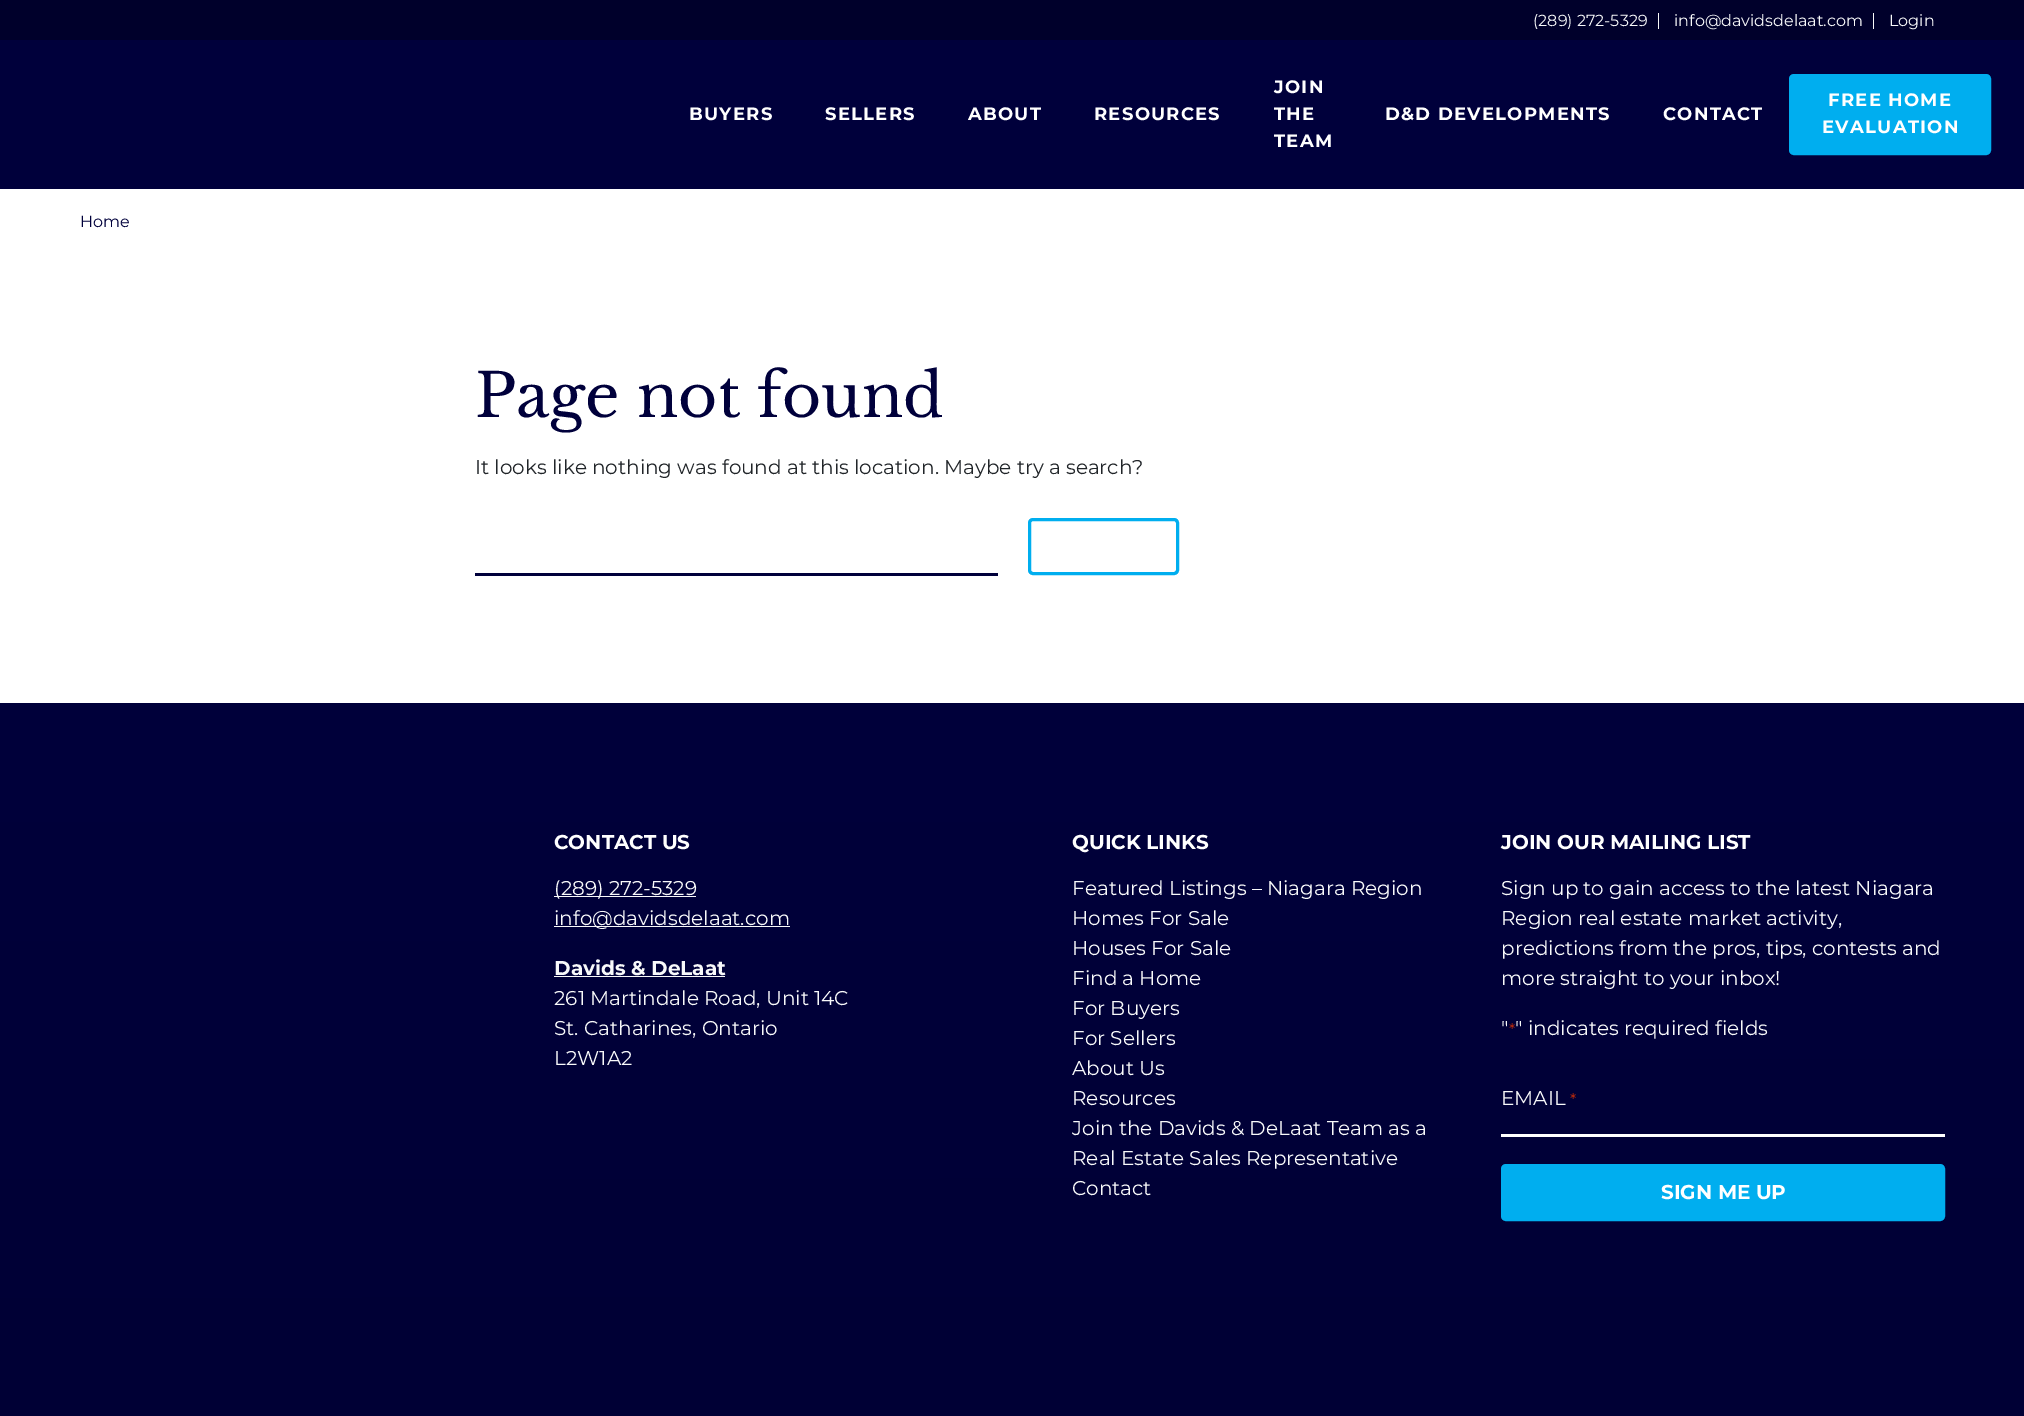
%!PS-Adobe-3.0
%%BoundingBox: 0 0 2024 1416
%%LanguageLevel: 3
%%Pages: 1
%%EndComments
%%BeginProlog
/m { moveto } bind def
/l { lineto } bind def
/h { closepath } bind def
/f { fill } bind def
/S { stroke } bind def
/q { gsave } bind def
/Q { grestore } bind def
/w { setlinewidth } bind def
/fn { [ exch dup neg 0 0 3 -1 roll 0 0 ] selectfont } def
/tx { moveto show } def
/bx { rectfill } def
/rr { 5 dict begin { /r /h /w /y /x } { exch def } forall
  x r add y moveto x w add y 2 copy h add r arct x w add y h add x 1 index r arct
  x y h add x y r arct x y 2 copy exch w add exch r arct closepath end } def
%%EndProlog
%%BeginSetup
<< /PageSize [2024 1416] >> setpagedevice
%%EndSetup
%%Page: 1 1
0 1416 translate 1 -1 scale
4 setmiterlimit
1 setgray
0 0 2024 1416 bx
0 0 0.169 setrgbcolor
0 0 2024 40 bx
0.973 0.976 0.98 setrgbcolor
1658 13 1 16 bx
/Montserrat-Regular 16 fn
(\(289\) 272-5329) 1533 26 tx
1873 13 1 16 bx
(info@davidsdelaat.com) 1674 26 tx
(Login) 1889 26 tx
0 0 0.231 setrgbcolor
0 40 2024 149 bx
/Montserrat-Bold 18 fn
1 setgray
689 120 m 1.25 0 (BUYERS) ashow
825 120 m 1.25 0 (SELLERS) ashow
968 120 m 1.25 0 (ABOUT) ashow
1094 120 m 1.25 0 (RESOURCES) ashow
1274 93 m 1.25 0 (JOIN) ashow
1274 120 m 1.25 0 (THE) ashow
1274 147 m 1.25 0 (TEAM) ashow
1385 120 m 1.25 0 (D&D DEVELOPMENTS) ashow
1663 120 m 1.25 0 (CONTACT) ashow
0 0.682 0.937 setrgbcolor
1790.5 75.5 199 78 3.5 rr q f Q
3 w
S
1 setgray
1828 106 m 1.25 0 (FREE HOME) ashow
1822 133 m 1.25 0 (EVALUATION) ashow
/Montserrat-Regular 16 fn
0 0 0.231 setrgbcolor
(Home) 80 227 tx
/LibreBaskerville-Regular 60 fn
(Page not found) 475 417 tx
/Montserrat-Regular 20 fn
0.129 0.145 0.161 setrgbcolor
(It looks like nothing was found at this location. Maybe try a search?) 475 474 tx
0 0 0.231 setrgbcolor
475 573 523 3 bx
0 0.682 0.937 setrgbcolor
1029.5 519.5 148 54 3.5 rr S
q 0 703 m 2024 703 l 2024 1416 l 0 1416 l h clip newpath
<< /ShadingType 2 /ColorSpace /DeviceRGB /Coords [1012 703 1013 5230] /Extend [true true] /Function << /FunctionType 3 /Domain [0 1] /Functions [<< /FunctionType 2 /Domain [0 1] /C0 [0 0 0.231] /C1 [0 0 0.161] /N 1 >> << /FunctionType 2 /Domain [0 1] /C0 [0 0 0.161] /C1 [0 0 0] /N 1 >>] /Bounds [0.49] /Encode [0 1 0 1] >> >> shfill Q
/Montserrat-Bold 20 fn
1 setgray
(CONTACT US) 554 849 tx
0.973 0.976 0.98 setrgbcolor
554 896 142 1 bx
/Montserrat-Regular 20 fn
(\(289\) 272-5329) 554 895 tx
554 926 236 1 bx
(info@davidsdelaat.com) 554 925 tx
/Montserrat-Bold 20 fn
(Davids & DeLaat) 554 975 tx
554 976 171 1 bx
/Montserrat-Regular 20 fn
(261 Martindale Road, Unit 14C) 554 1005 tx
(St. Catharines, Ontario) 554 1035 tx
(L2W1A2) 554 1065 tx
/Montserrat-Bold 20 fn
1 setgray
(QUICK LINKS) 1072 849 tx
/Montserrat-Regular 20 fn
0.973 0.976 0.98 setrgbcolor
(Featured Listings – Niagara Region) 1072 895 tx
(Homes For Sale) 1072 925 tx
(Houses For Sale) 1072 955 tx
(Find a Home) 1072 985 tx
(For Buyers) 1072 1015 tx
(For Sellers) 1072 1045 tx
(About Us) 1072 1075 tx
(Resources) 1072 1105 tx
(Join the Davids & DeLaat Team as a) 1072 1135 tx
(Real Estate Sales Representative) 1072 1165 tx
(Contact) 1072 1195 tx
/Montserrat-Bold 20 fn
1 setgray
(JOIN OUR MAILING LIST) 1501 849 tx
/Montserrat-Regular 20 fn
0.973 0.976 0.98 setrgbcolor
(Sign up to gain access to the latest Niagara) 1501 895 tx
(Region real estate market activity,) 1501 925 tx
(predictions from the pros, tips, contests and) 1501 955 tx
(more straight to your inbox!) 1501 985 tx
(") 1501 1035 tx
/Montserrat-Regular 16 fn
0.753 0.169 0.039 setrgbcolor
(*) 1509 1035 tx
/Montserrat-Regular 20 fn
0.973 0.976 0.98 setrgbcolor
(" indicates required fields) 1515 1035 tx
(EMAIL) 1501 1105 tx
/Montserrat-Regular 16 fn
0.753 0.169 0.039 setrgbcolor
(*) 1570 1105 tx
1 setgray
1501 1134 444 3 bx
0 0.682 0.937 setrgbcolor
1502.5 1165.5 441 54 3.5 rr q f Q
S
/Montserrat-Bold 20 fn
1 setgray
(SIGN ME UP) 1661 1199 tx
showpage
%%EOF
